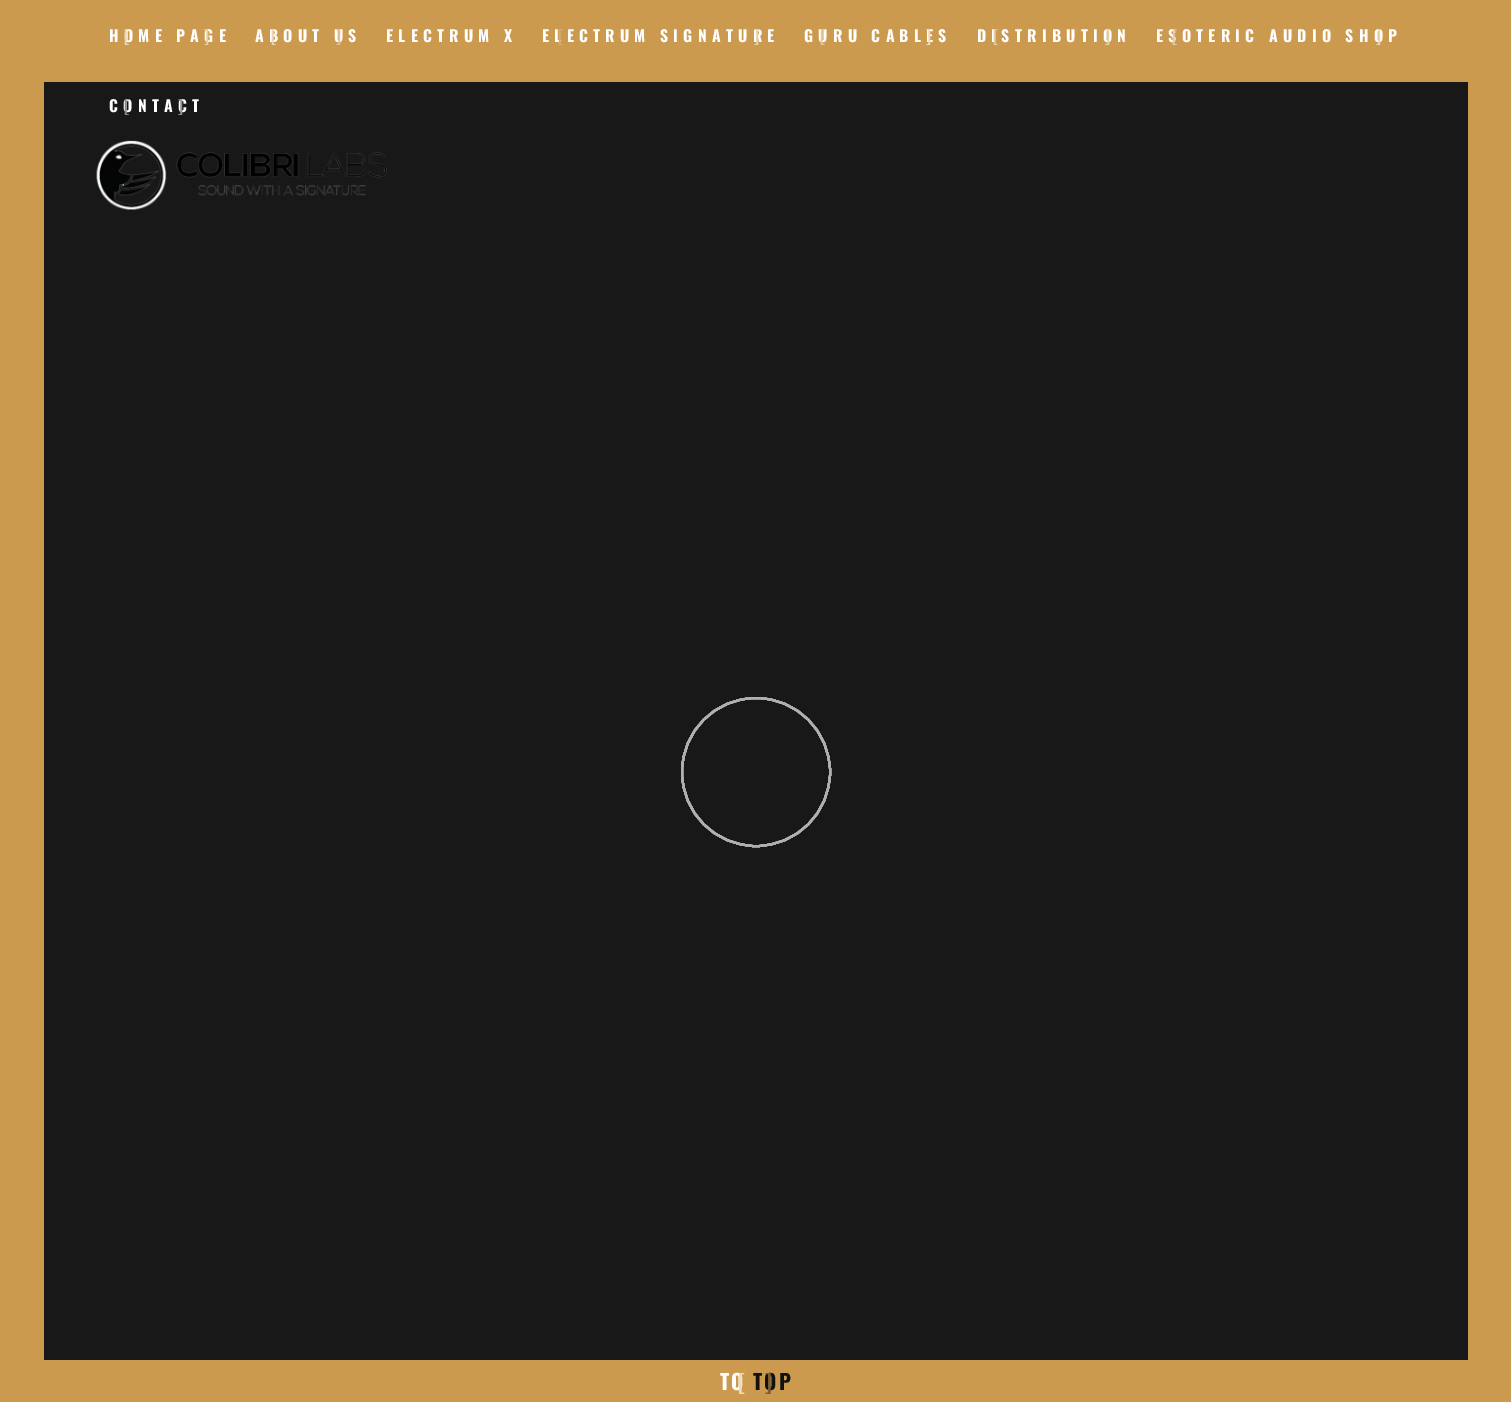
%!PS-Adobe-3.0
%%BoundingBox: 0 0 1511 1402
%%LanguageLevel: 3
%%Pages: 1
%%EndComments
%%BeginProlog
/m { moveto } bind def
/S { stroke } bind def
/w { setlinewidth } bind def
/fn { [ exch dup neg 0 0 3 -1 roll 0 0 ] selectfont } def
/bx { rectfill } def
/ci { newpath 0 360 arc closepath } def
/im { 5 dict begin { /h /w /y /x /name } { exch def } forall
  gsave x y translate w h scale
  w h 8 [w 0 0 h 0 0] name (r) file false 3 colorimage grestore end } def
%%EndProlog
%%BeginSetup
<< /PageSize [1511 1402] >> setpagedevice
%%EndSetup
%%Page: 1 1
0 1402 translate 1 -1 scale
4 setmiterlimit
0.094 setgray
0 0 1511 1402 bx
0.8 0.604 0.31 setrgbcolor
0 0 1511 70 bx
0 70 44 1290 bx
/Oswald-Bold 15.75 fn
1 setgray
109 42 m 5.25 0 (HOME PAGE) ashow
0.918 0.839 0.722 setrgbcolor
124 42 m 5.25 0 ([) ashow
0.898 0.8 0.651 setrgbcolor
204 42 m 5.25 0 (]) ashow
1 setgray
255 42 m 5.25 0 (ABOUT US) ashow
0.918 0.839 0.722 setrgbcolor
271 42 m 5.25 0 ([) ashow
0.882 0.765 0.588 setrgbcolor
336 42 m 5.25 0 (]) ashow
1 setgray
386 42 m 5.25 0 (ELECTRUM X) ashow
542 42 m 5.25 0 (ELECTRUM SIGNATURE) ashow
0.835 0.678 0.435 setrgbcolor
558 42 m 5.25 0 ([) ashow
0.91 0.82 0.686 setrgbcolor
754 42 m 5.25 0 (]) ashow
1 setgray
804 42 m 5.25 0 (GURU CABLES) ashow
0.898 0.8 0.651 setrgbcolor
820 42 m 5.25 0 ([) ashow
0.929 0.855 0.749 setrgbcolor
926 42 m 5.25 0 (]) ashow
1 setgray
977 42 m 5.25 0 (DISTRIBUTION) ashow
0.898 0.8 0.651 setrgbcolor
993 42 m 5.25 0 ([) ashow
0.91 0.82 0.686 setrgbcolor
1105 42 m 5.25 0 (]) ashow
1 setgray
1156 42 m 5.25 0 (ESOTERIC AUDIO SHOP) ashow
0.898 0.8 0.651 setrgbcolor
1172 42 m 5.25 0 ([) ashow
0.918 0.839 0.722 setrgbcolor
1376 42 m 5.25 0 (]) ashow
1 setgray
109 112 m 5.25 0 (CONTACT) ashow
0.533 setgray
124 112 m 5.25 0 ([) ashow
0.573 setgray
178 112 m 5.25 0 (]) ashow
(image0.raw) 96 140 291 70 im
0.8 0.604 0.31 setrgbcolor
44 70 1424 12 bx
0.686 setgray
2 w
756 772 74 ci S
756 772 74 ci S
756 772 74 ci S
756 772 74 ci S
756 772 74 ci S
756 772 74 ci S
0.8 0.604 0.31 setrgbcolor
1468 70 43 1290 bx
0 1360 1511 42 bx
/Oswald-Bold 21 fn
1 setgray
720 1390 m 2 0 (TO) ashow
0.929 0.855 0.749 setrgbcolor
738 1390 m 2 0 ([) ashow
0.067 setgray
753 1390 m 2 0 (TOP) ashow
0.475 0.365 0.204 setrgbcolor
765 1390 m 2 0 (]) ashow
showpage
%%EOF
